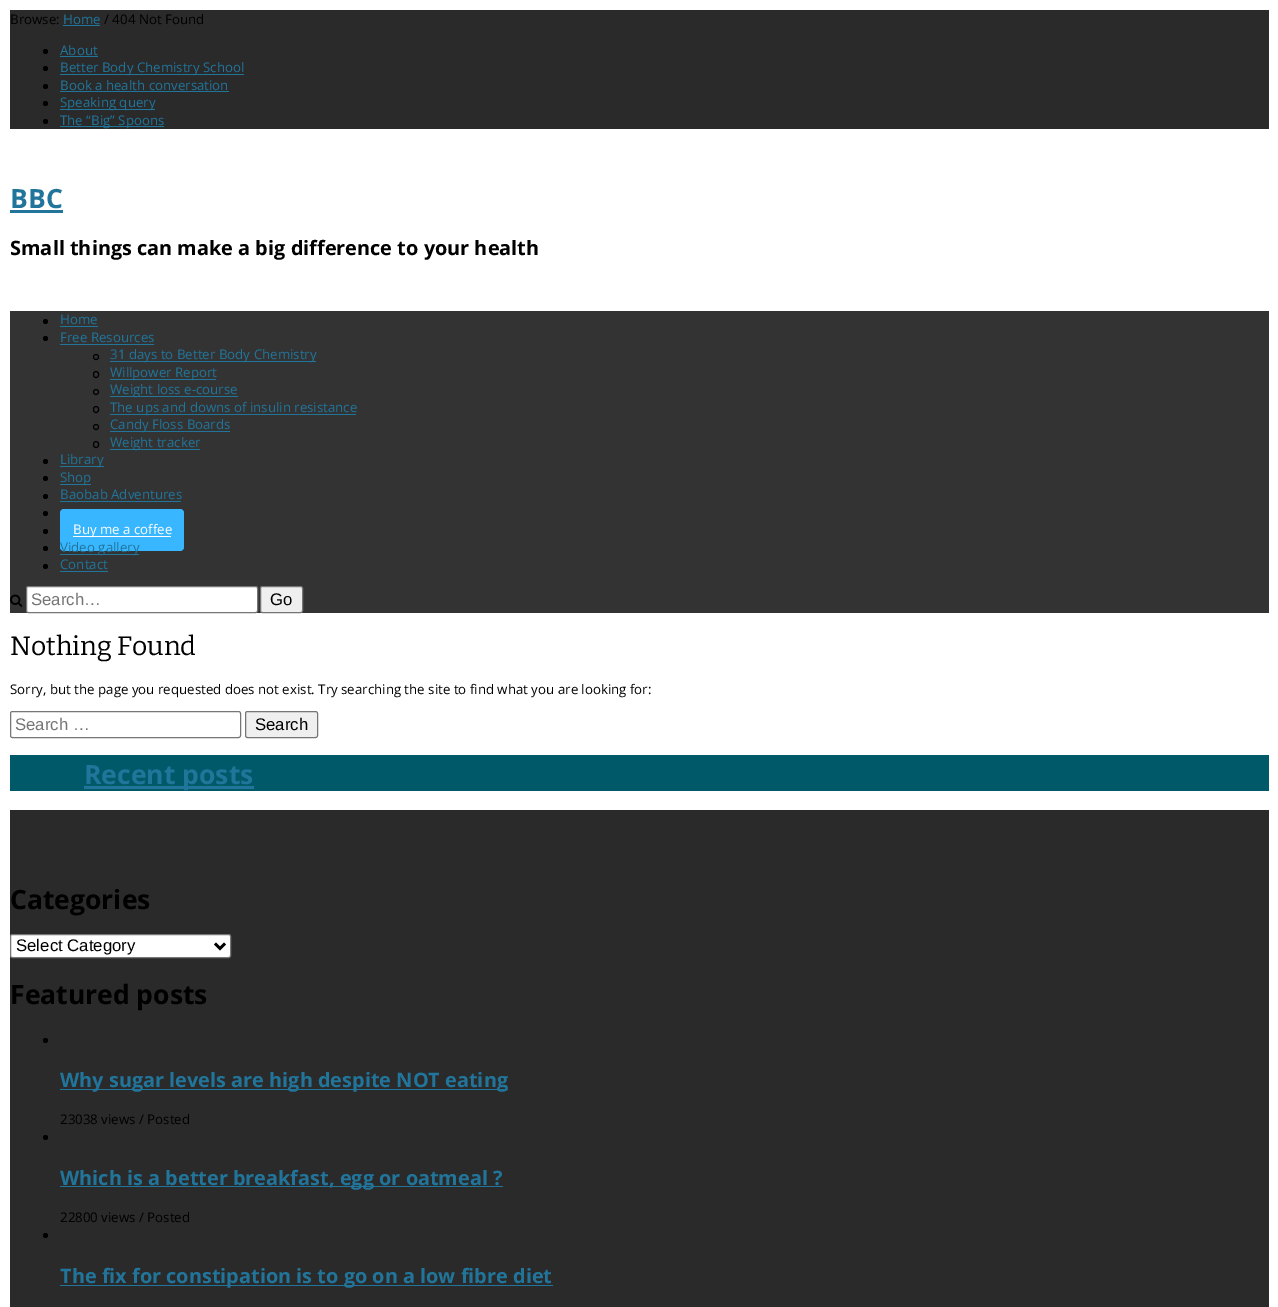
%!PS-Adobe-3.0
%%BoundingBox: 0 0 1278 1307
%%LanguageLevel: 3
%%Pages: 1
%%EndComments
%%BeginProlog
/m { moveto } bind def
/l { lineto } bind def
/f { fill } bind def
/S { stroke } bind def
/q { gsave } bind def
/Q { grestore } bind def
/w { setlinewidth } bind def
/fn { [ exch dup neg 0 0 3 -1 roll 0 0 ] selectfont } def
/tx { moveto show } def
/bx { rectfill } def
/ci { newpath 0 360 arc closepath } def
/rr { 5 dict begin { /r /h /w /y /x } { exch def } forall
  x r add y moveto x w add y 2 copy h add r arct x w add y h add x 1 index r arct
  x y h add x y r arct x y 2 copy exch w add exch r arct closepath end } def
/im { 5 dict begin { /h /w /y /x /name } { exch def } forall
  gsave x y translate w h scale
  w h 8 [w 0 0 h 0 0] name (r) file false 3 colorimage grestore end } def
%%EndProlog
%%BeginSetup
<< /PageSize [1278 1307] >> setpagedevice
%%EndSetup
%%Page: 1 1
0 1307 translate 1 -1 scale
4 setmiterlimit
1 setgray
0 0 1278 1307 bx
0.165 setgray
10 10 1259 119 bx
/OpenSans-Regular 13.3 fn
0 setgray
(Browse:) 10 24 tx
0.129 0.459 0.608 setrgbcolor
(Home) 63 24 tx
63 25 37 1 bx
0 setgray
(/ 404 Not Found) 104 24 tx
45.5 51.5 2.5 ci f
0.129 0.459 0.608 setrgbcolor
(About) 60 55 tx
60 56 38 1 bx
0 setgray
45.5 68.5 2.5 ci f
0.129 0.459 0.608 setrgbcolor
60 74 184 1 bx
(Better Body Chemistry School) 60 72 tx
0 setgray
45.5 86.5 2.5 ci f
0.129 0.459 0.608 setrgbcolor
(Book a health conversation) 60 90 tx
60 91 169 1 bx
0 setgray
45.5 103.5 2.5 ci f
0.129 0.459 0.608 setrgbcolor
60 109 95 1 bx
(Speaking query) 60 107 tx
0 setgray
45.5 121.5 2.5 ci f
0.129 0.459 0.608 setrgbcolor
60 126 104 1 bx
(The “Big” Spoons) 60 125 tx
/OpenSans-Bold 26.5 fn
(BBC) 10 208 tx
10 210 53 3 bx
/OpenSans-Bold 19.9 fn
0 setgray
(Small things can make a big difference to your health) 10 255 tx
0.2 setgray
10 311 1259 302 bx
0 setgray
45.5 321.5 2.5 ci f
/OpenSans-Regular 13.3 fn
0.129 0.459 0.608 setrgbcolor
(Home) 60 324 tx
60 326 38 1 bx
0 setgray
45.5 338.5 2.5 ci f
0.129 0.459 0.608 setrgbcolor
(Free Resources) 60 342 tx
60 344 94 1 bx
0 setgray
96 357 2.5 ci S
0.129 0.459 0.608 setrgbcolor
110 361 206 1 bx
(31 days to Better Body Chemistry) 110 359 tx
0 setgray
93.5 371.5 5 6 2.5 rr S
0.129 0.459 0.608 setrgbcolor
110 379 106 1 bx
(Willpower Report) 110 377 tx
0 setgray
96 392 2.5 ci S
0.129 0.459 0.608 setrgbcolor
110 396 128 1 bx
(Weight loss e-course) 110 394 tx
0 setgray
93.5 406.5 5 6 2.5 rr S
0.129 0.459 0.608 setrgbcolor
110 414 246 1 bx
(The ups and downs of insulin resistance) 110 412 tx
0 setgray
96 427 2.5 ci S
0.129 0.459 0.608 setrgbcolor
110 431 120 1 bx
(Candy Floss Boards) 110 429 tx
0 setgray
93.5 441.5 5 6 2.5 rr S
0.129 0.459 0.608 setrgbcolor
110 449 90 1 bx
(Weight tracker) 110 447 tx
0 setgray
45.5 461.5 2.5 ci f
0.129 0.459 0.608 setrgbcolor
60 466 44 1 bx
(Library) 60 464 tx
0 setgray
45.5 478.5 2.5 ci f
0.129 0.459 0.608 setrgbcolor
60 484 31 1 bx
(Shop) 60 482 tx
0 setgray
45.5 496.5 2.5 ci f
0.129 0.459 0.608 setrgbcolor
(Baobab Adventures) 60 499 tx
60 501 121 1 bx
0 setgray
45.5 513.5 2.5 ci f
45.5 531.5 2.5 ci f
0.22 0.714 1 setrgbcolor
60 509 124 42 4 rr f
1 setgray
73 536 98 1 bx
(Buy me a coffee) 73 534 tx
0 setgray
45.5 548.5 2.5 ci f
0.129 0.459 0.608 setrgbcolor
60 554 79 1 bx
(Video gallery) 60 552 tx
0 setgray
45.5 566.5 2.5 ci f
0.129 0.459 0.608 setrgbcolor
(Contact) 60 569 tx
60 571 48 1 bx
(image0.raw) 10 594 13 13 im
1 setgray
26.5 586.5 231 26 2 rr q f Q
0.463 setgray
S
/LiberationSans-Regular 16.75 fn
0.459 setgray
(Search…) 31 605 tx
0.937 setgray
260.5 586.5 42 26 2 rr q f Q
0.463 setgray
S
0 setgray
(Go) 270 605 tx
/Bitter-Thin 26.5 fn
(Nothing Found) 10 655 tx
/OpenSans-Regular 13.3 fn
(Sorry, but the page you requested does not exist. Try searching the site to find what you are looking for:) 10 694 tx
0.463 setgray
10.5 711.5 230 26 2 rr S
/LiberationSans-Regular 16.75 fn
0.459 setgray
(Search …) 15 730 tx
0.937 setgray
245.5 711.5 72 26 2 rr q f Q
0.463 setgray
S
0 setgray
(Search) 255 730 tx
0 0.349 0.412 setrgbcolor
10 755 1259 36 bx
0.129 0.459 0.608 setrgbcolor
84 786 170 3 bx
/OpenSans-Bold 26.5 fn
(Recent posts) 84 784 tx
0.165 setgray
10 810 1259 497 bx
0 setgray
(Categories) 10 909 tx
1 setgray
10.5 934.5 220 23 2 rr q f Q
0.463 setgray
S
0 setgray
2.5 w
215 943.5 m 220 948.5 l 225 943.5 l S
/LiberationSans-Regular 16.75 fn
(Select Category) 16 951 tx
/OpenSans-Bold 26.5 fn
(Featured posts) 10 1004 tx
45.5 1040.5 2.5 ci f
0.129 0.459 0.608 setrgbcolor
60 1089 448 1 bx
/OpenSans-Bold 19.9 fn
(Why sugar levels are high despite NOT eating) 60 1087 tx
/OpenSans-Regular 13.3 fn
0 setgray
(23038 views / Posted) 60 1124 tx
45.5 1137.5 2.5 ci f
0.129 0.459 0.608 setrgbcolor
60 1186 443 1 bx
/OpenSans-Bold 19.9 fn
(Which is a better breakfast, egg or oatmeal ?) 60 1185 tx
/OpenSans-Regular 13.3 fn
0 setgray
(22800 views / Posted) 60 1222 tx
45.5 1235.5 2.5 ci f
0.129 0.459 0.608 setrgbcolor
60 1285 493 1 bx
/OpenSans-Bold 19.9 fn
(The fix for constipation is to go on a low fibre diet) 60 1283 tx
showpage
%%EOF
